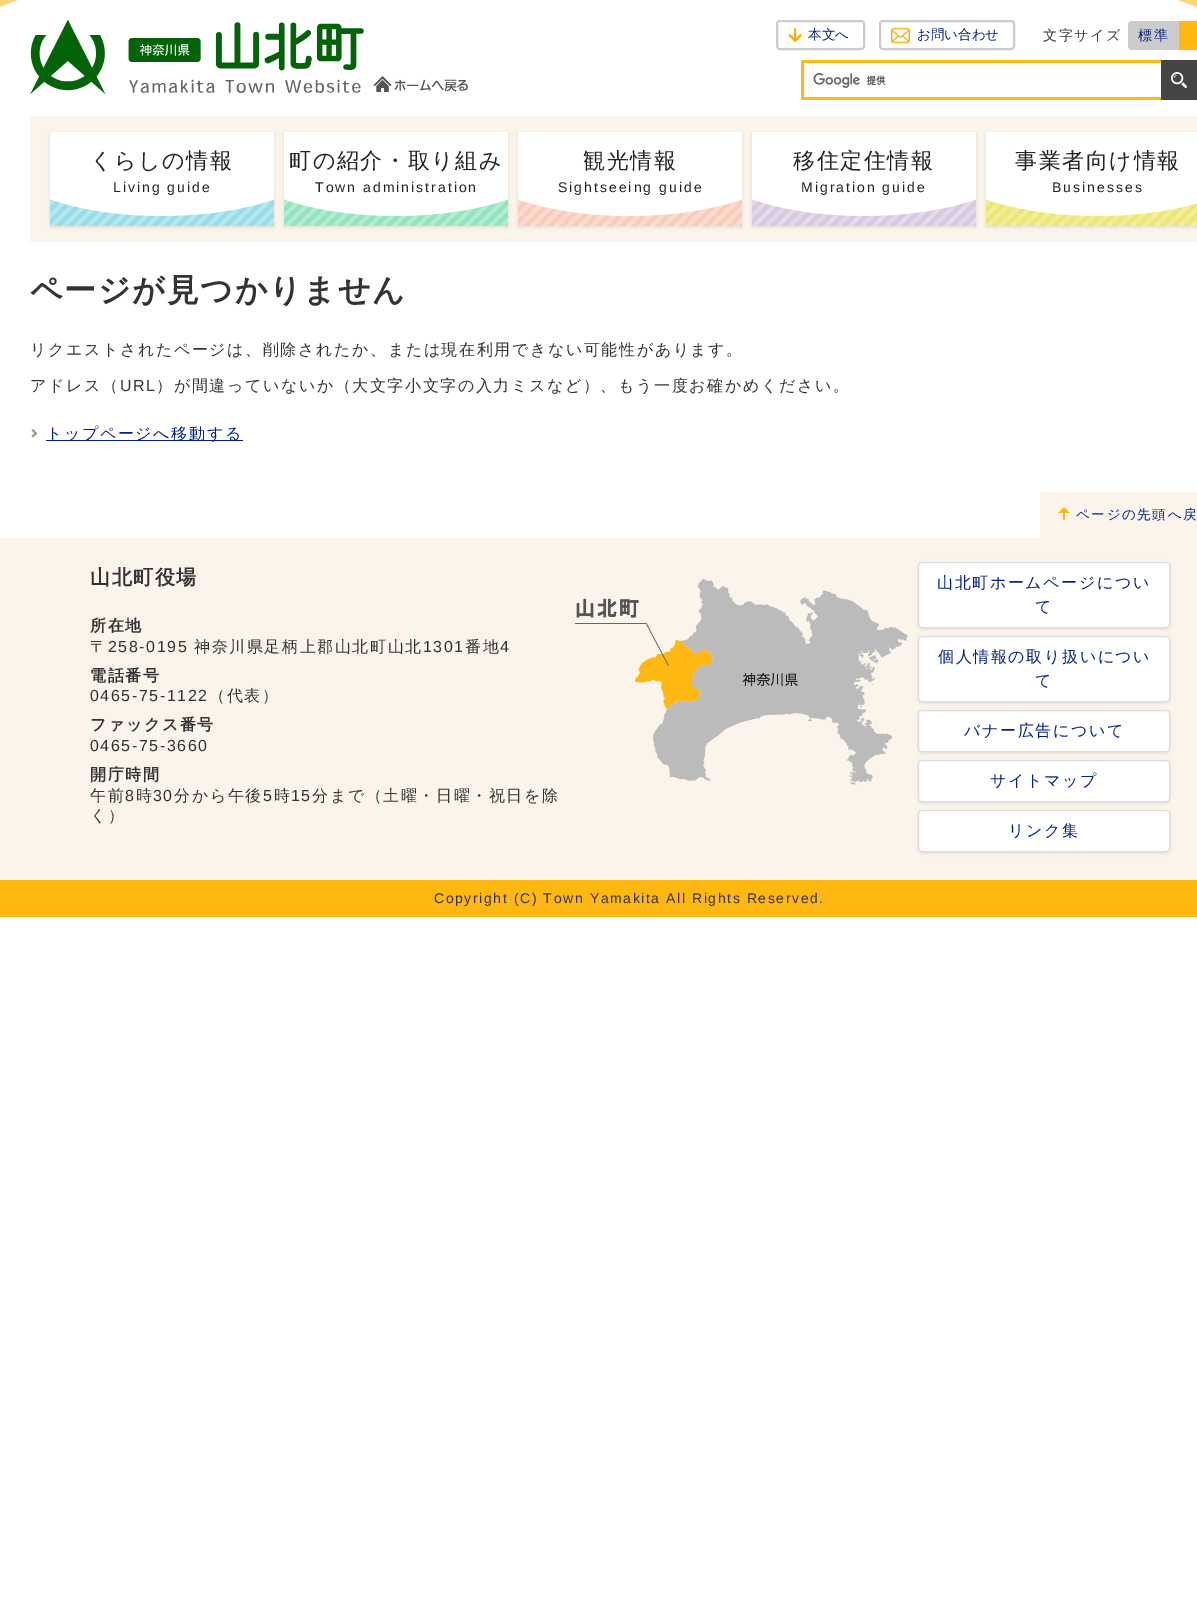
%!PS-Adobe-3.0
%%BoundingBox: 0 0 1197 1616
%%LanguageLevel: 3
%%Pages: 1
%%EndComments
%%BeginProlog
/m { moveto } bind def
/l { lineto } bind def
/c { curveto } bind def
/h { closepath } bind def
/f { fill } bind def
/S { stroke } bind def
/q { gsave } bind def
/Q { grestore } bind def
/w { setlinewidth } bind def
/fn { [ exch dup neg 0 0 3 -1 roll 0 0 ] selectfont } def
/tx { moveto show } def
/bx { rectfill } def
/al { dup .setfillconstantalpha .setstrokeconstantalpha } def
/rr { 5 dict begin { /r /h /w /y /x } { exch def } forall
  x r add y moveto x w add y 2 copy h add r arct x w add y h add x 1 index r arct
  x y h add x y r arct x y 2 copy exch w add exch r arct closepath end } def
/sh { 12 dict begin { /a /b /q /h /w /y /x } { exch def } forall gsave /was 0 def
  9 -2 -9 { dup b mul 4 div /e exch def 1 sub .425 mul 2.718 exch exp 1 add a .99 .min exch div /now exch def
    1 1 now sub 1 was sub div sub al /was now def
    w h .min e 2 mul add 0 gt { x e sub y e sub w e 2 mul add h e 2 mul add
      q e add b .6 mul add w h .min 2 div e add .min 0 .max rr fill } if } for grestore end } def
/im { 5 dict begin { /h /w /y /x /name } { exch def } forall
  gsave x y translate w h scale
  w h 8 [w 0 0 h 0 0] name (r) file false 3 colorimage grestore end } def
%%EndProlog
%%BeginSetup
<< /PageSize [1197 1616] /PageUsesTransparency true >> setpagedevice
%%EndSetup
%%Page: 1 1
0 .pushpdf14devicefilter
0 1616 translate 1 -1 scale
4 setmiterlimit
1 setgray
0 0 1197 1616 bx
(image0.raw) 0 0 1197 8 im
(image1.raw) 30 20 438 74 im
(image2.raw) 788 28 14 14 im
0.8 setgray
2 w
777 21 87 28 3 rr S
/WenQuanYiZenHei-Medium 13.5 fn
0 0.125 0.541 setrgbcolor
(本文へ) 808 39 tx
(image3.raw) 891 27 19 17 im
0.8 setgray
880 21 134 28 3 rr S
0 0.125 0.541 setrgbcolor
(お問い合わせ) 917 39 tx
/WenQuanYiZenHei-Medium 14 fn
0.2 setgray
1043 40 m 1.6 0 (文字サイズ) ashow
0.8 setgray
1132 21 m 1179 21 l 1179 50 l 1132 50 l 1130 50 1128 48 1128 46 c 1128 25 l 1128 23 1130 21 1132 21 c h f
0 0.125 0.541 setrgbcolor
1138 40 m 1.6 0 (標準) ashow
1 0.722 0.067 setrgbcolor
1179 21 18 29 bx
(image4.raw) 813 73 73 15 im
801 60 360 3 bx
801 97 360 3 bx
801 60 3 40 bx
0.267 setgray
1161 60 36 40 bx
(image5.raw) 1171 72 16 16 im
0.98 0.957 0.922 setrgbcolor
30 116 1167 126 bx
0 setgray
50 133 224 94 0 1.5 0.1 sh
1 setgray
50 132 224 67 bx
(image6.raw) 50 199 224 27 im
/WenQuanYiZenHei-Medium 22 fn
0.133 setgray
90 168 m 1.6 0 (くらしの情報) ashow
/LiberationSans-Regular 14 fn
113 192 m 2 0 (Living guide) ashow
0 setgray
284 133 224 94 0 1.5 0.1 sh
1 setgray
284 132 224 67 bx
(image7.raw) 284 199 224 27 im
/WenQuanYiZenHei-Medium 22 fn
0.133 setgray
289 168 m 1.6 0 (町の紹介・取り組み) ashow
/LiberationSans-Regular 14 fn
315 192 m 2 0 (Town administration) ashow
0 setgray
518 133 224 94 0 1.5 0.1 sh
1 setgray
518 132 224 67 bx
(image8.raw) 518 199 224 27 im
/WenQuanYiZenHei-Medium 22 fn
0.133 setgray
583 168 m 1.6 0 (観光情報) ashow
/LiberationSans-Regular 14 fn
558 192 m 2 0 (Sightseeing guide) ashow
0 setgray
752 133 224 94 0 1.5 0.1 sh
1 setgray
752 132 224 67 bx
(image9.raw) 752 199 224 27 im
/WenQuanYiZenHei-Medium 22 fn
0.133 setgray
793 168 m 1.6 0 (移住定住情報) ashow
/LiberationSans-Regular 14 fn
801 192 m 2 0 (Migration guide) ashow
0 setgray
986 133 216 94 0 1.5 0.1 sh
1 setgray
986 132 211 67 bx
(image10.raw) 986 199 211 27 im
/WenQuanYiZenHei-Medium 22 fn
0.133 setgray
1015 168 m 1.6 0 (事業者向け情報) ashow
/LiberationSans-Regular 14 fn
1052 192 m 2 0 (Businesses) ashow
/WenQuanYiZenHei-Bold 32 fn
0.2 setgray
30 301 m 1.6 0 (ページが見つかりません) ashow
/WenQuanYiZenHei-Medium 16 fn
30 355 m 1.6 0 (リクエストされたページは、削除されたか、または現在利用できない可能性があります。) ashow
30 391 m 1.6 0 (アドレス（) ashow
/LiberationSans-Regular 16 fn
120 391 m 1.6 0 (URL) ashow
/WenQuanYiZenHei-Medium 16 fn
156 391 m 1.6 0 (）が間違っていないか（大文字小文字の入力ミスなど）、もう一度お確かめください。) ashow
0.6 setgray
31.5 430.5 m 33 429 l 37 433.5 l 36 435 l h f
31.5 436 m 36 432 l 37 433.5 l 33 437.5 l h f
0 0.125 0.541 setrgbcolor
46 440 197 1 bx
46 439 m 1.6 0 (トップページへ移動する) ashow
0.98 0.957 0.922 setrgbcolor
1040 492 157 46 bx
1 0.722 0.067 setrgbcolor
1070 513 m 1058 513 l 1064 507 l h f
/WenQuanYiZenHei-Medium 13.5 fn
0 0.125 0.541 setrgbcolor
1076 519 m 1.6 0 (ページの先頭へ戻) ashow
1 0.722 0.067 setrgbcolor
1063 512 2 8 bx
0.98 0.957 0.922 setrgbcolor
0 538 1197 342 bx
/WenQuanYiZenHei-Bold 20 fn
0.2 setgray
90 584 m 1.6 0 (山北町役場) ashow
/WenQuanYiZenHei-Bold 16 fn
90 631 m 1.6 0 (所在地) ashow
/WenQuanYiZenHei-Medium 16 fn
90 652 m 1.6 0 (〒) ashow
/LiberationSans-Regular 16 fn
108 652 m 1.6 0 (258-0195) ashow
/WenQuanYiZenHei-Medium 16 fn
194 652 m 1.6 0 (神奈川県足柄上郡山北町山北) ashow
/LiberationSans-Regular 16 fn
423 652 m 1.6 0 (1301) ashow
/WenQuanYiZenHei-Medium 16 fn
465 652 m 1.6 0 (番地) ashow
/LiberationSans-Regular 16 fn
500 652 m 1.6 0 (4) ashow
/WenQuanYiZenHei-Bold 16 fn
90 681 m 1.6 0 (電話番号) ashow
/LiberationSans-Regular 16 fn
90 701 m 1.6 0 (0465-75-1122) ashow
/WenQuanYiZenHei-Medium 16 fn
209 701 m 1.6 0 (（代表）) ashow
/WenQuanYiZenHei-Bold 16 fn
90 730 m 1.6 0 (ファックス番号) ashow
/LiberationSans-Regular 16 fn
90 751 m 1.6 0 (0465-75-3660) ashow
/WenQuanYiZenHei-Bold 16 fn
90 780 m 1.6 0 (開庁時間) ashow
/WenQuanYiZenHei-Medium 16 fn
90 801 m 1.6 0 (午前) ashow
/LiberationSans-Regular 16 fn
125 801 m 1.6 0 (8) ashow
/WenQuanYiZenHei-Medium 16 fn
136 801 m 1.6 0 (時) ashow
/LiberationSans-Regular 16 fn
153 801 m 1.6 0 (30) ashow
/WenQuanYiZenHei-Medium 16 fn
174 801 m 1.6 0 (分から午後) ashow
/LiberationSans-Regular 16 fn
263 801 m 1.6 0 (5) ashow
/WenQuanYiZenHei-Medium 16 fn
274 801 m 1.6 0 (時) ashow
/LiberationSans-Regular 16 fn
291 801 m 1.6 0 (15) ashow
/WenQuanYiZenHei-Medium 16 fn
312 801 m 1.6 0 (分まで（土曜・日曜・祝日を除) ashow
90 821 m 1.6 0 (く）) ashow
(image11.raw) 575 579 333 206 im
0 setgray
918 563 252 66 4 1.5 0.1 sh
1 setgray
918.5 562.5 251 65 3.5 rr q f Q
0.867 setgray
1 w
S
0 0.125 0.541 setrgbcolor
937 588 m 1.6 0 (山北町ホームページについ) ashow
1035 612 m 1.6 0 (て) ashow
0 setgray
918 637 252 66 4 1.5 0.1 sh
1 setgray
918.5 636.5 251 65 3.5 rr q f Q
0.867 setgray
S
0 0.125 0.541 setrgbcolor
938 662 m 1.6 0 (個人情報の取り扱いについ) ashow
1035 686 m 1.6 0 (て) ashow
0 setgray
918 711 252 42 4 1.5 0.1 sh
1 setgray
918.5 710.5 251 41 3.5 rr q f Q
0.867 setgray
S
0 0.125 0.541 setrgbcolor
964 736 m 1.6 0 (バナー広告について) ashow
0 setgray
918 761 252 42 4 1.5 0.1 sh
1 setgray
918.5 760.5 251 41 3.5 rr q f Q
0.867 setgray
S
0 0.125 0.541 setrgbcolor
990 786 m 1.6 0 (サイトマップ) ashow
0 setgray
918 811 252 42 4 1.5 0.1 sh
1 setgray
918.5 810.5 251 41 3.5 rr q f Q
0.867 setgray
S
0 0.125 0.541 setrgbcolor
1008 836 m 1.6 0 (リンク集) ashow
1 0.722 0.067 setrgbcolor
0 880 1197 37 bx
/LiberationSans-Regular 14 fn
0.2 setgray
434 903 m 1.6 0 (Copyright \(C\) Town Yamakita All Rights Reserved.) ashow
.poppdf14devicefilter showpage
%%EOF
